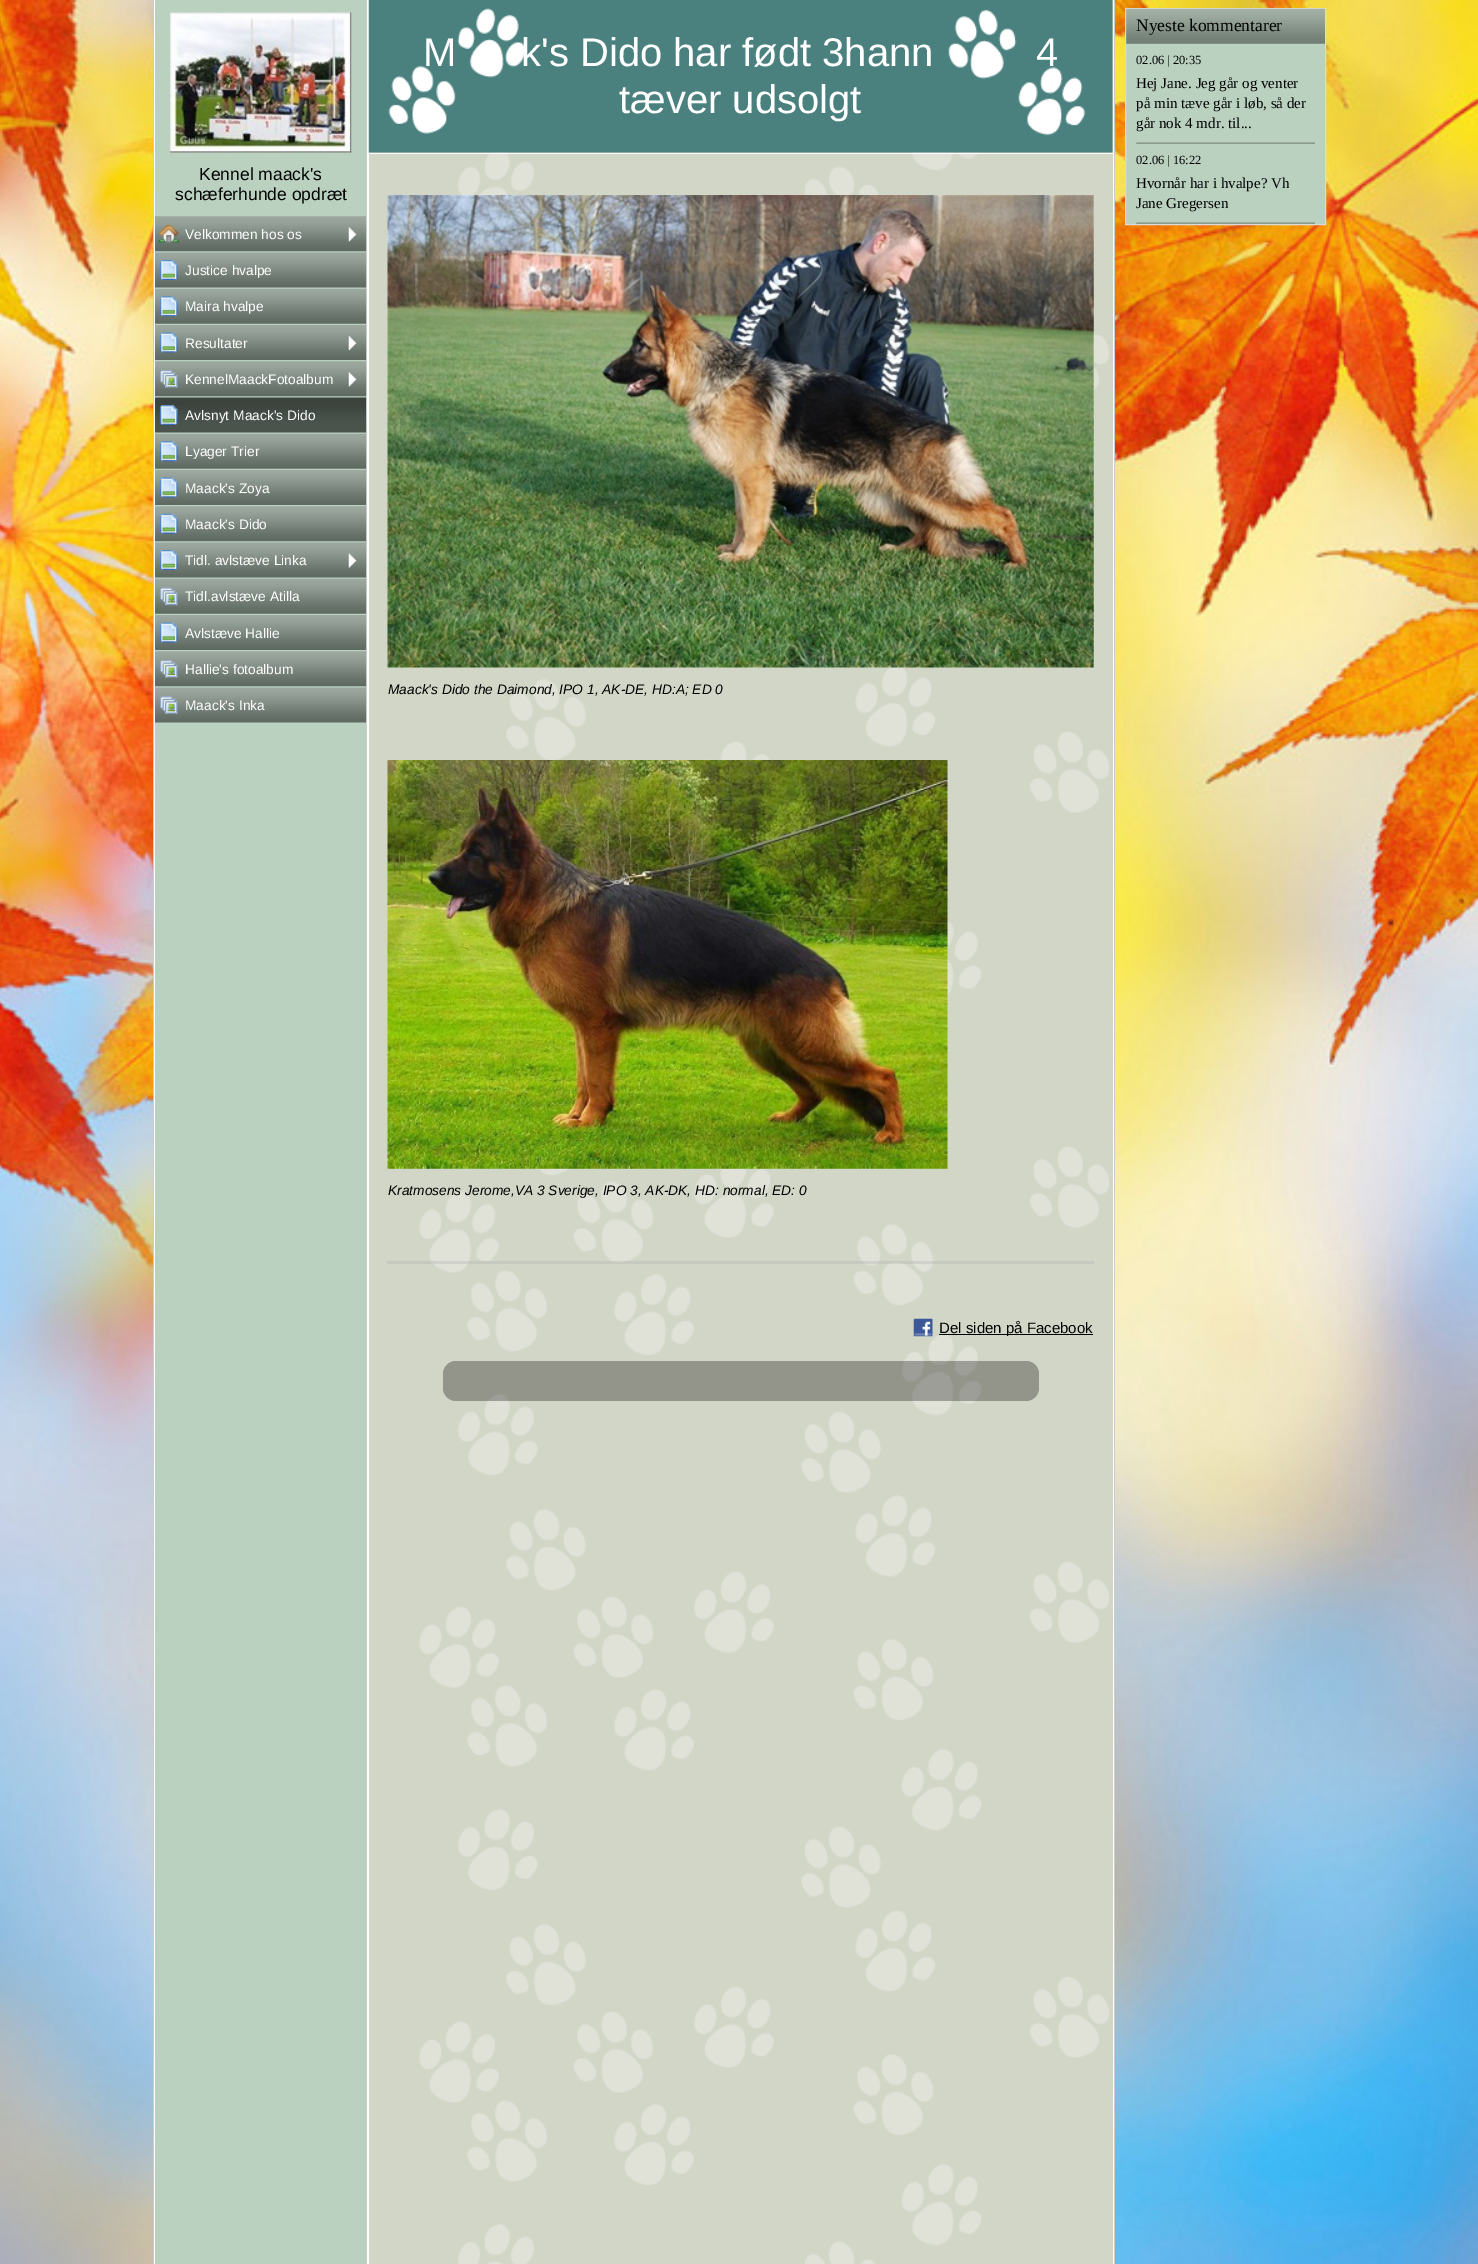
%!PS-Adobe-3.0
%%BoundingBox: 0 0 1478 2264
%%LanguageLevel: 3
%%Pages: 1
%%EndComments
%%BeginProlog
/m { moveto } bind def
/l { lineto } bind def
/h { closepath } bind def
/f { fill } bind def
/S { stroke } bind def
/q { gsave } bind def
/Q { grestore } bind def
/fn { [ exch dup neg 0 0 3 -1 roll 0 0 ] selectfont } def
/tx { moveto show } def
/bx { rectfill } def
/al { dup .setfillconstantalpha .setstrokeconstantalpha } def
/rr { 5 dict begin { /r /h /w /y /x } { exch def } forall
  x r add y moveto x w add y 2 copy h add r arct x w add y h add x 1 index r arct
  x y h add x y r arct x y 2 copy exch w add exch r arct closepath end } def
/im { 5 dict begin { /h /w /y /x /name } { exch def } forall
  gsave x y translate w h scale
  w h 8 [w 0 0 h 0 0] name (r) file false 3 colorimage grestore end } def
%%EndProlog
%%BeginSetup
<< /PageSize [1478 2264] /PageUsesTransparency true >> setpagedevice
%%EndSetup
%%Page: 1 1
0 .pushpdf14devicefilter
0 2264 translate 1 -1 scale
4 setmiterlimit
1 setgray
0 0 1478 2264 bx
(image0.raw) 0 0 1478 2264 im
154 0 960 2264 bx
0.8 setgray
153 0 1 2264 bx
0.729 0.82 0.753 setrgbcolor
155 0 211 2264 bx
(image1.raw) 170 12 182 141 im
/LiberationSans-Regular 17.5 fn
0 setgray
(Kennel maack's) 199 180 tx
(schæferhunde opdræt) 175 200 tx
0.8 setgray
366 0 1 2264 bx
(image2.raw) 155 216 212 36 im
(image3.raw) 158 224 21 19 im
(image4.raw) 348 227 9 15 im
/LiberationSans-Regular 13.75 fn
1 setgray
(Velkommen hos os) 185 239 tx
(image5.raw) 155 252 212 36 im
(image6.raw) 159 260 19 20 im
(Justice hvalpe) 185 275 tx
(image7.raw) 155 288 212 36 im
(image8.raw) 159 296 19 21 im
(Maira hvalpe) 185 311 tx
(image9.raw) 155 325 212 35 im
(image10.raw) 159 332 19 21 im
(image11.raw) 348 336 9 14 im
(Resultater) 185 348 tx
(image2.raw) 155 361 212 36 im
(image12.raw) 159 369 19 19 im
(image4.raw) 348 372 9 15 im
(KennelMaackFotoalbum) 185 384 tx
(image13.raw) 155 397 212 36 im
(image14.raw) 159 405 19 20 im
(Avlsnyt Maack's Dido) 185 420 tx
(image7.raw) 155 433 212 36 im
(image8.raw) 159 441 19 21 im
(Lyager Trier) 185 456 tx
(image9.raw) 155 470 212 35 im
(image10.raw) 159 477 19 21 im
(Maack's Zoya) 185 493 tx
(image2.raw) 155 506 212 36 im
(image15.raw) 159 513 19 21 im
(Maack's Dido) 185 529 tx
(image5.raw) 155 542 212 36 im
(image6.raw) 159 550 19 20 im
(image16.raw) 348 553 9 15 im
(Tidl. avlstæve Linka) 185 565 tx
(image7.raw) 155 578 212 36 im
(image17.raw) 159 587 19 19 im
(Tidl.avlstæve Atilla) 185 601 tx
(image9.raw) 155 615 212 35 im
(image10.raw) 159 622 19 21 im
(Avlstæve Hallie) 185 638 tx
(image2.raw) 155 651 212 36 im
(image12.raw) 159 659 19 19 im
(Hallie's fotoalbum) 185 674 tx
(image5.raw) 155 687 212 36 im
(image18.raw) 159 696 19 18 im
(Maack's Inka) 185 710 tx
0.824 0.839 0.78 setrgbcolor
369 0 744 2264 bx
(image19.raw) 419 152 691 2112 im
(image20.raw) 368 0 745 153 im
1 setgray
369 153 744 1 bx
/LiberationSans-Regular 40 fn
(M) 423 66 tx
(k's Dido har født 3hann) 521 66 tx
(4) 1036 66 tx
(tæver udsolgt) 619 113 tx
(image21.raw) 387 195 707 473 im
/LiberationSans-Italic 13.75 fn
0 setgray
(Maack's Dido the Daimond, IPO 1, AK-DE, HD:A; ED 0) 388 694 tx
(image22.raw) 387 760 561 409 im
(Kratmosens Jerome,VA 3 Sverige, IPO 3, AK-DK, HD: normal, ED: 0) 388 1195 tx
0.3 al
0.671 setgray
387 1261 707 3 bx
1 al
(image23.raw) 913 1318 20 19 im
0 setgray
939 1334 154 1 bx
/LiberationSans-Regular 15 fn
(Del siden på Facebook) 939 1333 tx
0.3 al
443 1361 596 40 13 rr f
1 al
0.8 setgray
1114 0 1 2264 bx
0.729 0.82 0.753 setrgbcolor
1125.5 8.5 m 1325.5 8.5 l 1325.5 224.5 l 1125.5 224.5 l h q f Q
0.855 setgray
S
(image24.raw) 1126 8 199 36 im
/LiberationSerif-Regular 17.5 fn
0 setgray
(Nyeste kommentarer) 1136 31 tx
/LiberationSerif-Regular 12.5 fn
(02.06 | 20:35) 1136 64 tx
/LiberationSerif-Regular 15 fn
(Hej Jane. Jeg går og venter) 1136 88 tx
(på min tæve går i løb, så der) 1136 108 tx
(går nok 4 mdr. til...) 1136 128 tx
(image25.raw) 1136 142 179 2 im
/LiberationSerif-Regular 12.5 fn
(02.06 | 16:22) 1136 164 tx
/LiberationSerif-Regular 15 fn
(Hvornår har i hvalpe? Vh) 1136 188 tx
(Jane Gregersen) 1136 208 tx
(image25.raw) 1136 222 179 2 im
.poppdf14devicefilter showpage
%%EOF
